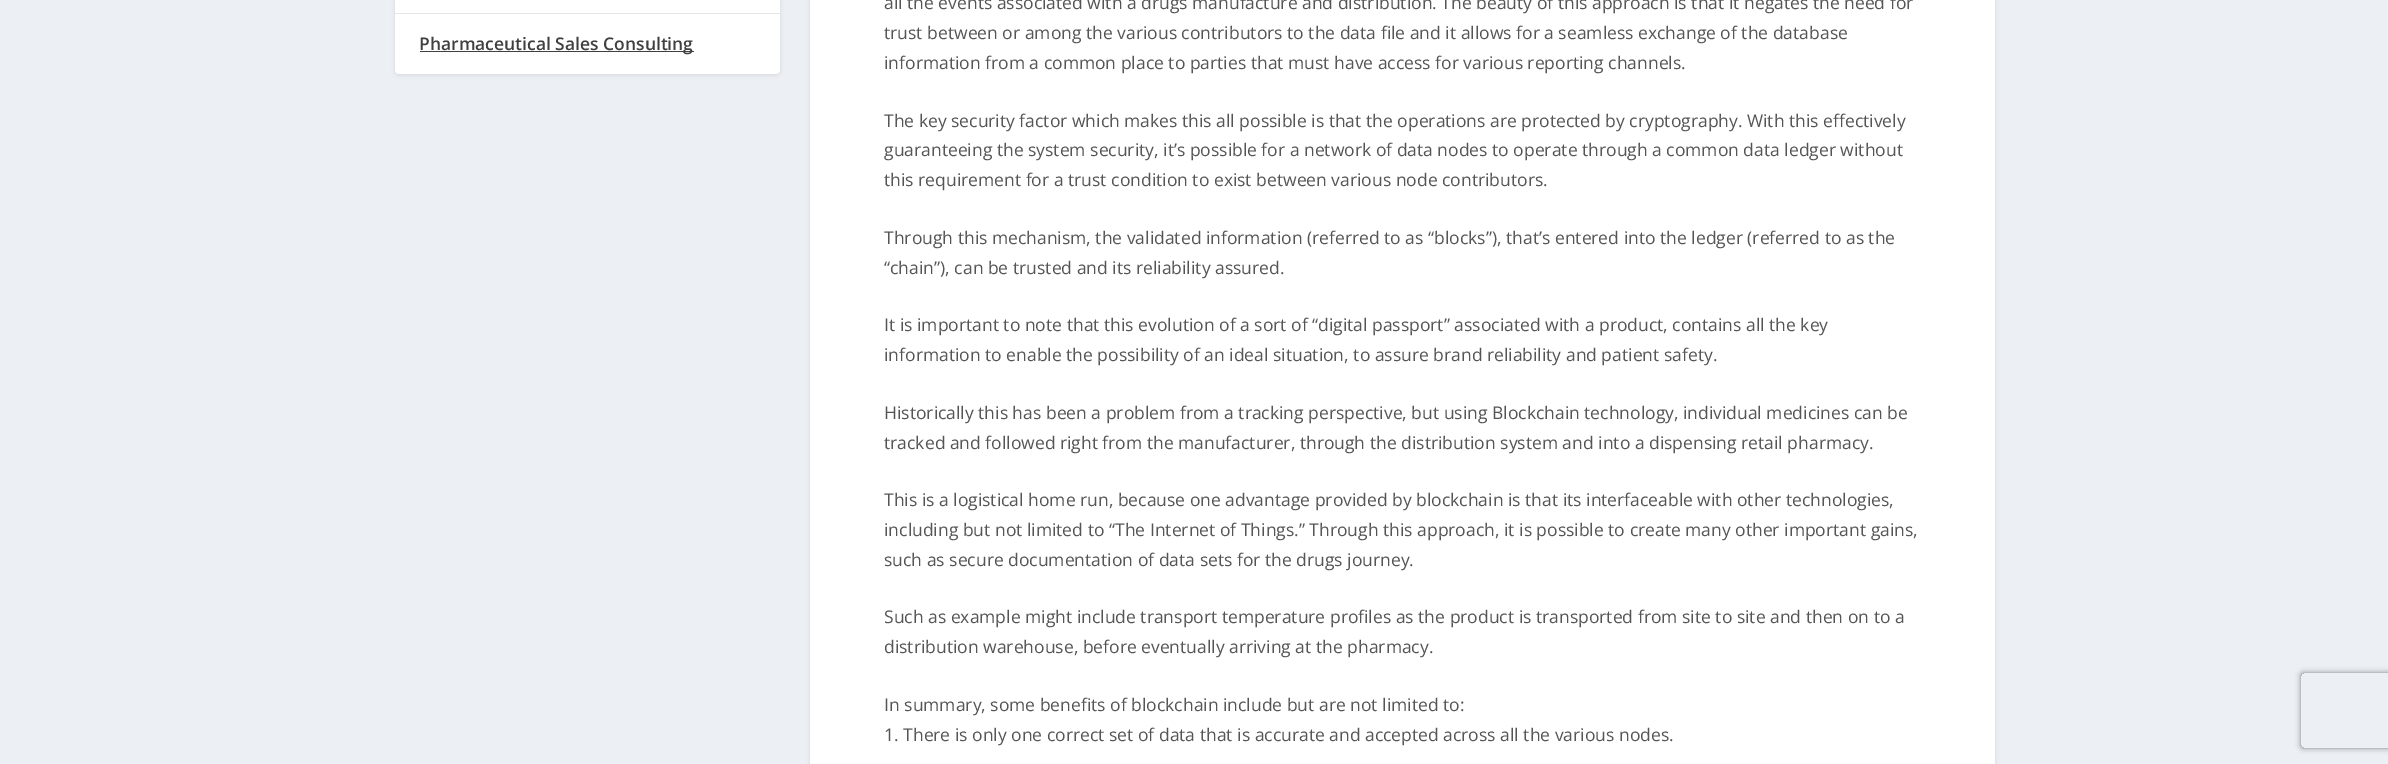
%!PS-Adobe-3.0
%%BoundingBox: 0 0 2388 764
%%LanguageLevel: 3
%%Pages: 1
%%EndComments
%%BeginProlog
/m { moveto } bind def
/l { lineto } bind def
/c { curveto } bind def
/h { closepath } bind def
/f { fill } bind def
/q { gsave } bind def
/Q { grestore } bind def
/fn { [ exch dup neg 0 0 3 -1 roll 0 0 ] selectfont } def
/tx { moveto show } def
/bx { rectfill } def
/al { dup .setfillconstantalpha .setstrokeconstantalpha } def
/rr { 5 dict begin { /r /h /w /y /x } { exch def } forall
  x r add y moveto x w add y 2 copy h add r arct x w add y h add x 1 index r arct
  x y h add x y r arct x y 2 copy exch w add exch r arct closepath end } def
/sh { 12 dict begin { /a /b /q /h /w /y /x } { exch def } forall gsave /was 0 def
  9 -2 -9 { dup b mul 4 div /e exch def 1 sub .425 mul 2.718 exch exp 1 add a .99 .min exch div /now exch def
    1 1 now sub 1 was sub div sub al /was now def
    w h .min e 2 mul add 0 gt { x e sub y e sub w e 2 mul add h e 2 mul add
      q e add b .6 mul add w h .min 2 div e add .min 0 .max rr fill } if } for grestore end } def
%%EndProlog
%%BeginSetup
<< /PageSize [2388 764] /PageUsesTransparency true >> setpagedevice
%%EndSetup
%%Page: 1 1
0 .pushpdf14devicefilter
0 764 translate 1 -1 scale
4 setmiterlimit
0.925 0.941 0.961 setrgbcolor
0 0 2388 764 bx
0 setgray
395 -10 385 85 4 2 0.1 sh
1 setgray
395 -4 385 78 4 rr f
0.902 setgray
395 13 385 1 bx
0.251 setgray
420 51 274 1 bx
/OpenSans-SemiBold 17.5 fn
(Pharmaceutical Sales Consulting) 419 50 tx
0 setgray
810 -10 1185 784 4 2 0.1 sh
1 setgray
810 0 1185 764 bx
/OpenSans-Regular 17.5 fn
0.333 setgray
(all the events associated with a drugs manufacture and distribution. The beauty of this approach is that it negates the need for) 884 9 tx
(trust between or among the various contributors to the data file and it allows for a seamless exchange of the database) 884 39 tx
(information from a common place to parties that must have access for various reporting channels.) 884 69 tx
(The key security factor which makes this all possible is that the operations are protected by cryptography. With this effectively) 884 127 tx
(guaranteeing the system security, it’s possible for a network of data nodes to operate through a common data ledger without) 884 156 tx
(this requirement for a trust condition to exist between various node contributors.) 884 186 tx
(Through this mechanism, the validated information \(referred to as “blocks”\), that’s entered into the ledger \(referred to as the) 884 244 tx
(“chain”\), can be trusted and its reliability assured.) 884 274 tx
(It is important to note that this evolution of a sort of “digital passport” associated with a product, contains all the key) 884 331 tx
(information to enable the possibility of an ideal situation, to assure brand reliability and patient safety.) 884 361 tx
(Historically this has been a problem from a tracking perspective, but using Blockchain technology, individual medicines can be) 884 419 tx
(tracked and followed right from the manufacturer, through the distribution system and into a dispensing retail pharmacy.) 884 449 tx
(This is a logistical home run, because one advantage provided by blockchain is that its interfaceable with other technologies,) 884 506 tx
(including but not limited to “The Internet of Things.” Through this approach, it is possible to create many other important gains,) 884 536 tx
(such as secure documentation of data sets for the drugs journey.) 884 566 tx
(Such as example might include transport temperature profiles as the product is transported from site to site and then on to a) 884 623 tx
(distribution warehouse, before eventually arriving at the pharmacy.) 884 653 tx
(In summary, some benefits of blockchain include but are not limited to:) 884 711 tx
(1. There is only one correct set of data that is accurate and accepted across all the various nodes.) 884 741 tx
q
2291 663 m 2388 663 l 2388 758 l 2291 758 l h 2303.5 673 m 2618.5 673 l 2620 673 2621 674 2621 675.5 c 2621 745.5 l 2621 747 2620 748 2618.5 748 c 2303.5 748 l 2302 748 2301 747 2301 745.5 c 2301 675.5 l 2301 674 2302 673 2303.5 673 c h eoclip newpath
0.502 setgray
2301 673 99 75 2.5 3 1 sh
Q
.poppdf14devicefilter showpage
%%EOF
